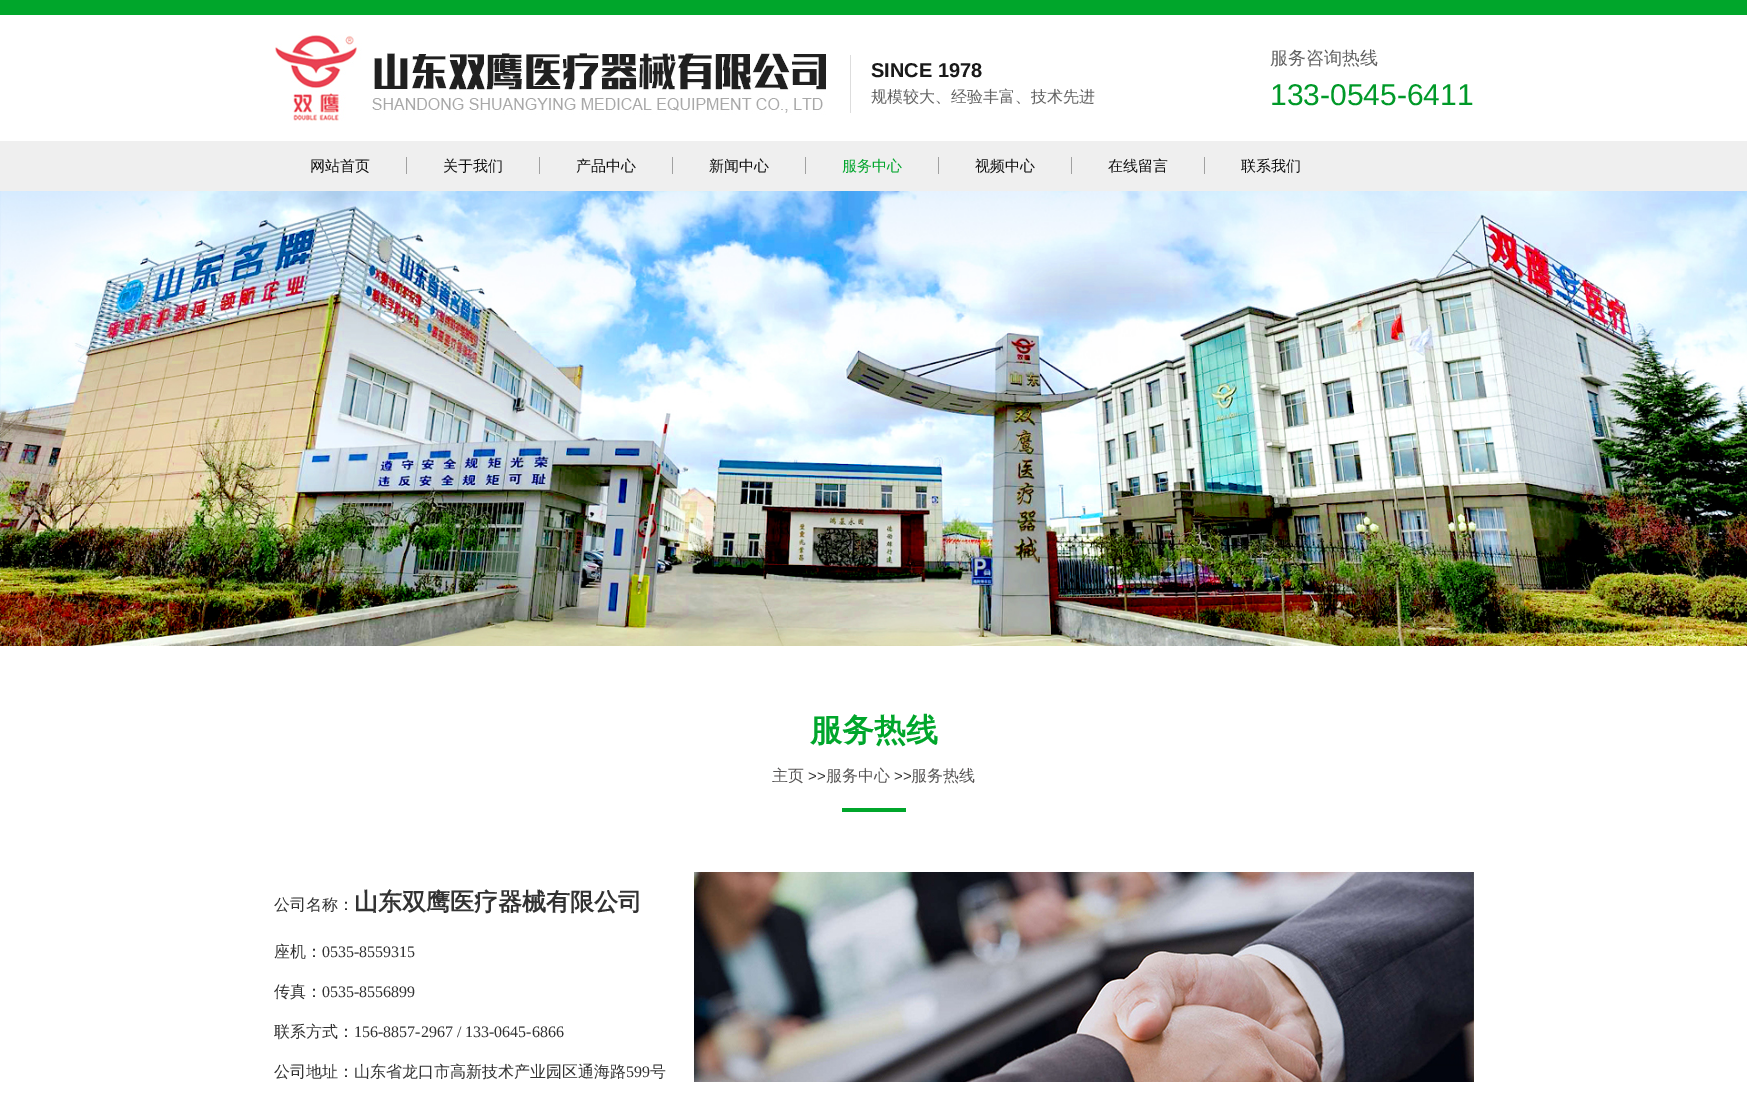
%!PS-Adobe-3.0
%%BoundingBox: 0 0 1747 1093
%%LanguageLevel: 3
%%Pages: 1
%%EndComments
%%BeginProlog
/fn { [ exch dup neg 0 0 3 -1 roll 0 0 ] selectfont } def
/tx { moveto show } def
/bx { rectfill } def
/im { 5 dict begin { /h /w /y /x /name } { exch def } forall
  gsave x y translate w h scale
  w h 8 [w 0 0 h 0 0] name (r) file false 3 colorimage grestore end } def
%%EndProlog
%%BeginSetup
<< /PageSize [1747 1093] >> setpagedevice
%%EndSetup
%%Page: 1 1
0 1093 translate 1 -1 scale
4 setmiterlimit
1 setgray
0 0 1747 1093 bx
0 0.651 0.169 setrgbcolor
0 0 1747 15 bx
(image0.raw) 275 35 576 86 im
/LiberationSans-Bold 20 fn
0.098 setgray
(SINCE 1978) 871 77 tx
/WenQuanYiZenHei-Medium 16 fn
0.38 setgray
(规模较大、经验丰富、技术先进) 871 102 tx
/WenQuanYiZenHei-Medium 18 fn
(服务咨询热线) 1270 64 tx
/LiberationSans-Regular 30 fn
0 0.6 0.157 setrgbcolor
(133-0545-6411) 1270 105 tx
0.937 setgray
0 141 1747 50 bx
/WenQuanYiZenHei-Medium 15 fn
0.067 setgray
(网站首页) 310 171 tx
0.631 setgray
406 157 1 17 bx
0.067 setgray
(关于我们) 443 171 tx
0.631 setgray
539 157 1 17 bx
0.067 setgray
(产品中心) 576 171 tx
0.631 setgray
672 157 1 17 bx
0.067 setgray
(新闻中心) 709 171 tx
0.631 setgray
805 157 1 17 bx
0 0.651 0.169 setrgbcolor
(服务中心) 842 171 tx
0.631 setgray
938 157 1 17 bx
0.067 setgray
(视频中心) 975 171 tx
0.631 setgray
1071 157 1 17 bx
0.067 setgray
(在线留言) 1108 171 tx
0.631 setgray
1204 157 1 17 bx
0.067 setgray
(联系我们) 1241 171 tx
(image1.raw) 0 191 1747 455 im
/WenQuanYiZenHei-Bold 32 fn
0 0.651 0.169 setrgbcolor
(服务热线) 810 741 tx
/WenQuanYiZenHei-Medium 16 fn
0.337 0.329 0.329 setrgbcolor
(主页) 772 781 tx
/LiberationSans-Regular 15 fn
0.196 setgray
(>>) 808 781 tx
/WenQuanYiZenHei-Medium 16 fn
0.337 0.329 0.329 setrgbcolor
(服务中心) 826 781 tx
/LiberationSans-Regular 15 fn
0.196 setgray
(>>) 894 781 tx
/WenQuanYiZenHei-Medium 16 fn
0.337 0.329 0.329 setrgbcolor
(服务热线) 911 781 tx
0 0.651 0.169 setrgbcolor
842 808 64 4 bx
0.196 setgray
(公司名称：) 274 910 tx
(image2.raw) 694 872 780 210 im
/WenQuanYiZenHei-Bold 24 fn
(山东双鹰医疗器械有限公司) 354 910 tx
/WenQuanYiZenHei-Medium 16 fn
(座机：) 274 957 tx
/LiberationSerif-Regular 16 fn
(0535-8559315) 322 957 tx
/WenQuanYiZenHei-Medium 16 fn
(传真：) 274 997 tx
/LiberationSerif-Regular 16 fn
(0535-8556899) 322 997 tx
/WenQuanYiZenHei-Medium 16 fn
(联系方式：) 274 1037 tx
/LiberationSerif-Regular 16 fn
(156-8857-2967 / 133-0645-6866) 354 1037 tx
/WenQuanYiZenHei-Medium 16 fn
(公司地址：山东省龙口市高新技术产业园区通海路) 274 1077 tx
/LiberationSerif-Regular 16 fn
(599) 626 1077 tx
/WenQuanYiZenHei-Medium 16 fn
(号) 650 1077 tx
showpage
%%EOF
